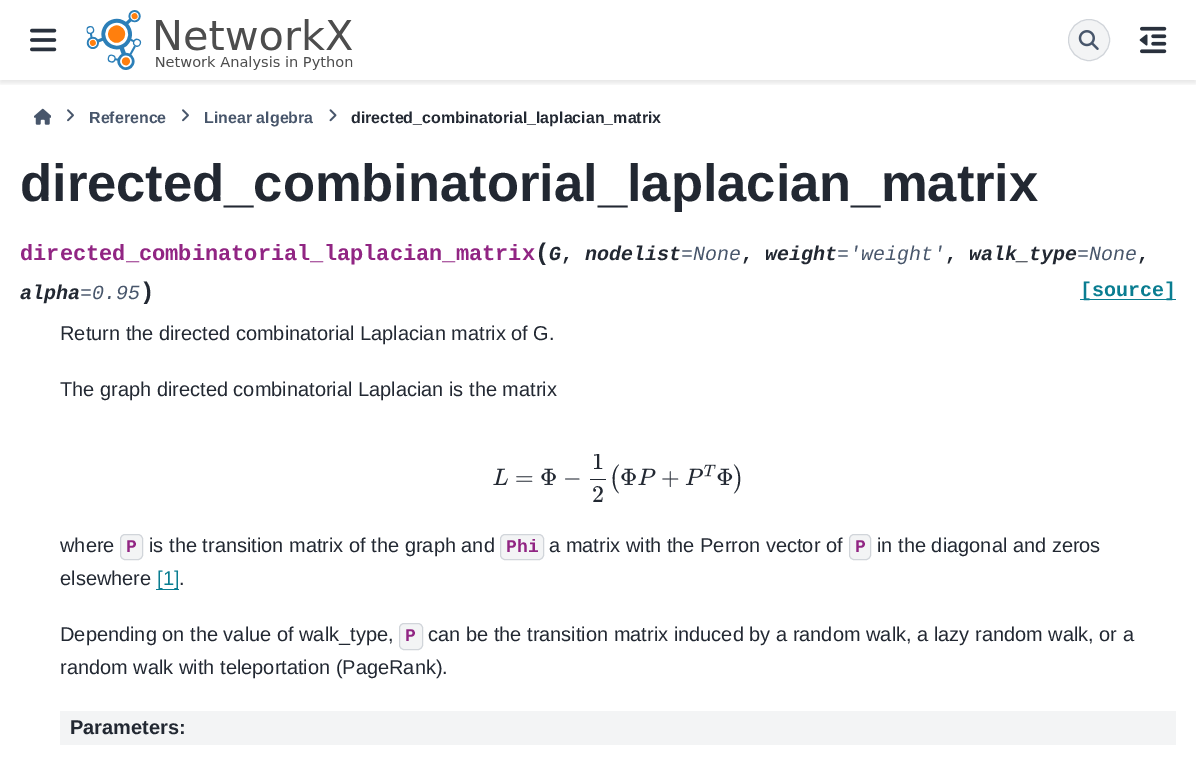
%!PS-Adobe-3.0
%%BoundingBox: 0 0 1196 764
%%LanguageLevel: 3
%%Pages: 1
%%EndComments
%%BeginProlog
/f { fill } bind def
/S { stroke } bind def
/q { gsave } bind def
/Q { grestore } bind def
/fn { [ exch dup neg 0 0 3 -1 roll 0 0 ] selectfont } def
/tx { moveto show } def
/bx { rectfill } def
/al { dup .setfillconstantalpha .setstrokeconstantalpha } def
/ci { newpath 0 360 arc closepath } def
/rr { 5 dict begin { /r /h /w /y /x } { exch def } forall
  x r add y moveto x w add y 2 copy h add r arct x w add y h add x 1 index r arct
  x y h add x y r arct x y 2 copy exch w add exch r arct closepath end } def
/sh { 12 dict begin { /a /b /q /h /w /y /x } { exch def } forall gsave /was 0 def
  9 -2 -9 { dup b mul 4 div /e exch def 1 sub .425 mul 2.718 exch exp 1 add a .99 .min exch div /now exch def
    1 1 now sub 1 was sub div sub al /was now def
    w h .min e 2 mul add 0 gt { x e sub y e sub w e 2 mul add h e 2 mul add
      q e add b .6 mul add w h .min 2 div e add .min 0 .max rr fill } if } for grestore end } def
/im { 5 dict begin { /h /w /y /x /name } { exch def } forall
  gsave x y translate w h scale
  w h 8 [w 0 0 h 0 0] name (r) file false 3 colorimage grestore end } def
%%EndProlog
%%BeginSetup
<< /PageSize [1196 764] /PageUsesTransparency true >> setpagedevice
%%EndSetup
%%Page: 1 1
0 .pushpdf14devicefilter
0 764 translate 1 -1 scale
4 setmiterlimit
1 setgray
0 0 1196 764 bx
q
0 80 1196 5 rectclip
0 setgray
0 3 1196 80 0 2.5 0.1 sh
Q
(image0.raw) 30 28 27 24 im
(image1.raw) 86 10 267 60 im
0.953 0.957 0.961 setrgbcolor
1089 40 20.5 ci q f Q
0.82 0.835 0.855 setrgbcolor
S
(image2.raw) 1078 30 21 20 im
(image3.raw) 1139 26 28 28 im
(image4.raw) 34 108 17 17 im
(image5.raw) 67 109 7 13 im
/LiberationSans-Bold 16 fn
0.282 0.337 0.42 setrgbcolor
(Reference) 89 123 tx
(image5.raw) 182 109 7 13 im
(Linear algebra) 204 123 tx
(image6.raw) 329 109 8 13 im
0.133 0.157 0.196 setrgbcolor
(directed_combinatorial_laplacian_matrix) 351 123 tx
/LiberationSans-Bold 52.5 fn
(directed_combinatorial_laplacian_matrix) 20 201 tx
/LiberationMono-Bold 22 fn
0.569 0.145 0.514 setrgbcolor
(directed_combinatorial_laplacian_matrix) 20 260 tx
/LiberationMono-Bold 24 fn
0.133 0.157 0.196 setrgbcolor
(\() 535 260 tx
/LiberationMono-BoldItalic 20 fn
(G) 549 260 tx
/LiberationMono-Bold 20 fn
(,) 561 260 tx
/LiberationMono-BoldItalic 20 fn
(nodelist) 585 260 tx
/LiberationMono-Italic 20 fn
0.282 0.337 0.42 setrgbcolor
(=None) 681 260 tx
/LiberationMono-Bold 20 fn
0.133 0.157 0.196 setrgbcolor
(,) 741 260 tx
/LiberationMono-BoldItalic 20 fn
(weight) 765 260 tx
/LiberationMono-Italic 20 fn
0.282 0.337 0.42 setrgbcolor
(='weight') 837 260 tx
/LiberationMono-Bold 20 fn
0.133 0.157 0.196 setrgbcolor
(,) 945 260 tx
/LiberationMono-BoldItalic 20 fn
(walk_type) 969 260 tx
/LiberationMono-Italic 20 fn
0.282 0.337 0.42 setrgbcolor
(=None) 1077 260 tx
/LiberationMono-Bold 20 fn
0.133 0.157 0.196 setrgbcolor
(,) 1137 260 tx
/LiberationMono-BoldItalic 20 fn
(alpha) 20 299 tx
/LiberationMono-Italic 20 fn
0.282 0.337 0.42 setrgbcolor
(=0.95) 80 299 tx
/LiberationMono-Bold 24 fn
0.133 0.157 0.196 setrgbcolor
(\)) 140 299 tx
0.039 0.49 0.569 setrgbcolor
1080 299 96 1 bx
/LiberationMono-Bold 20 fn
([source]) 1080 296 tx
/LiberationSans-Regular 20 fn
0.133 0.157 0.196 setrgbcolor
(Return the directed combinatorial Laplacian matrix of G.) 60 340 tx
(The graph directed combinatorial Laplacian is the matrix) 60 396 tx
(image7.raw) 493 468 15 17 im
/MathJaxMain-Regular 24 fn
(=) 515 485 tx
(image8.raw) 541 468 15 17 im
(−) 563 485 tx
q
60 454 1116 52 rectclip
(1) 592 469 tx
Q
590 479 16 1 bx
(2) 592 502 tx
/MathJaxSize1-Regular 24 fn
(\() 609 485 tx
(image8.raw) 621 468 15 17 im
(image9.raw) 638 468 18 17 im
/MathJaxMain-Regular 24 fn
(+) 661 485 tx
(image10.raw) 685 468 18 17 im
(image11.raw) 704 464 12 13 im
(image12.raw) 717 468 16 17 im
/MathJaxSize1-Regular 24 fn
(\)) 733 485 tx
/LiberationSans-Regular 20 fn
(where) 60 552 tx
0.953 0.957 0.961 setrgbcolor
120.5 534.5 22 25 4.5 rr q f Q
0.82 0.835 0.855 setrgbcolor
S
/LiberationMono-Bold 18 fn
0.569 0.145 0.514 setrgbcolor
(P) 126 552 tx
/LiberationSans-Regular 20 fn
0.133 0.157 0.196 setrgbcolor
(is the transition matrix of the graph and) 149 552 tx
0.953 0.957 0.961 setrgbcolor
500.5 534.5 43 25 4.5 rr q f Q
0.82 0.835 0.855 setrgbcolor
S
/LiberationMono-Bold 18 fn
0.569 0.145 0.514 setrgbcolor
(Phi) 506 552 tx
/LiberationSans-Regular 20 fn
0.133 0.157 0.196 setrgbcolor
(a matrix with the Perron vector of) 549 552 tx
0.953 0.957 0.961 setrgbcolor
849.5 534.5 21 25 4.5 rr q f Q
0.82 0.835 0.855 setrgbcolor
S
/LiberationMono-Bold 18 fn
0.569 0.145 0.514 setrgbcolor
(P) 855 552 tx
/LiberationSans-Regular 20 fn
0.133 0.157 0.196 setrgbcolor
(in the diagonal and zeros) 877 552 tx
(elsewhere) 60 585 tx
0.039 0.49 0.569 setrgbcolor
156 589 23 1 bx
([1]) 157 585 tx
0.133 0.157 0.196 setrgbcolor
(.) 179 585 tx
(Depending on the value of walk_type,) 60 641 tx
0.953 0.957 0.961 setrgbcolor
399.5 623.5 23 26 4.5 rr q f Q
0.82 0.835 0.855 setrgbcolor
S
/LiberationMono-Bold 18 fn
0.569 0.145 0.514 setrgbcolor
(P) 405 641 tx
/LiberationSans-Regular 20 fn
0.133 0.157 0.196 setrgbcolor
(can be the transition matrix induced by a random walk, a lazy random walk, or a) 428 641 tx
(random walk with teleportation \(PageRank\).) 60 674 tx
0.953 0.957 0.961 setrgbcolor
60 711 1116 34 bx
/LiberationSans-Bold 20 fn
0.133 0.157 0.196 setrgbcolor
(Parameters:) 70 734 tx
.poppdf14devicefilter showpage
%%EOF
